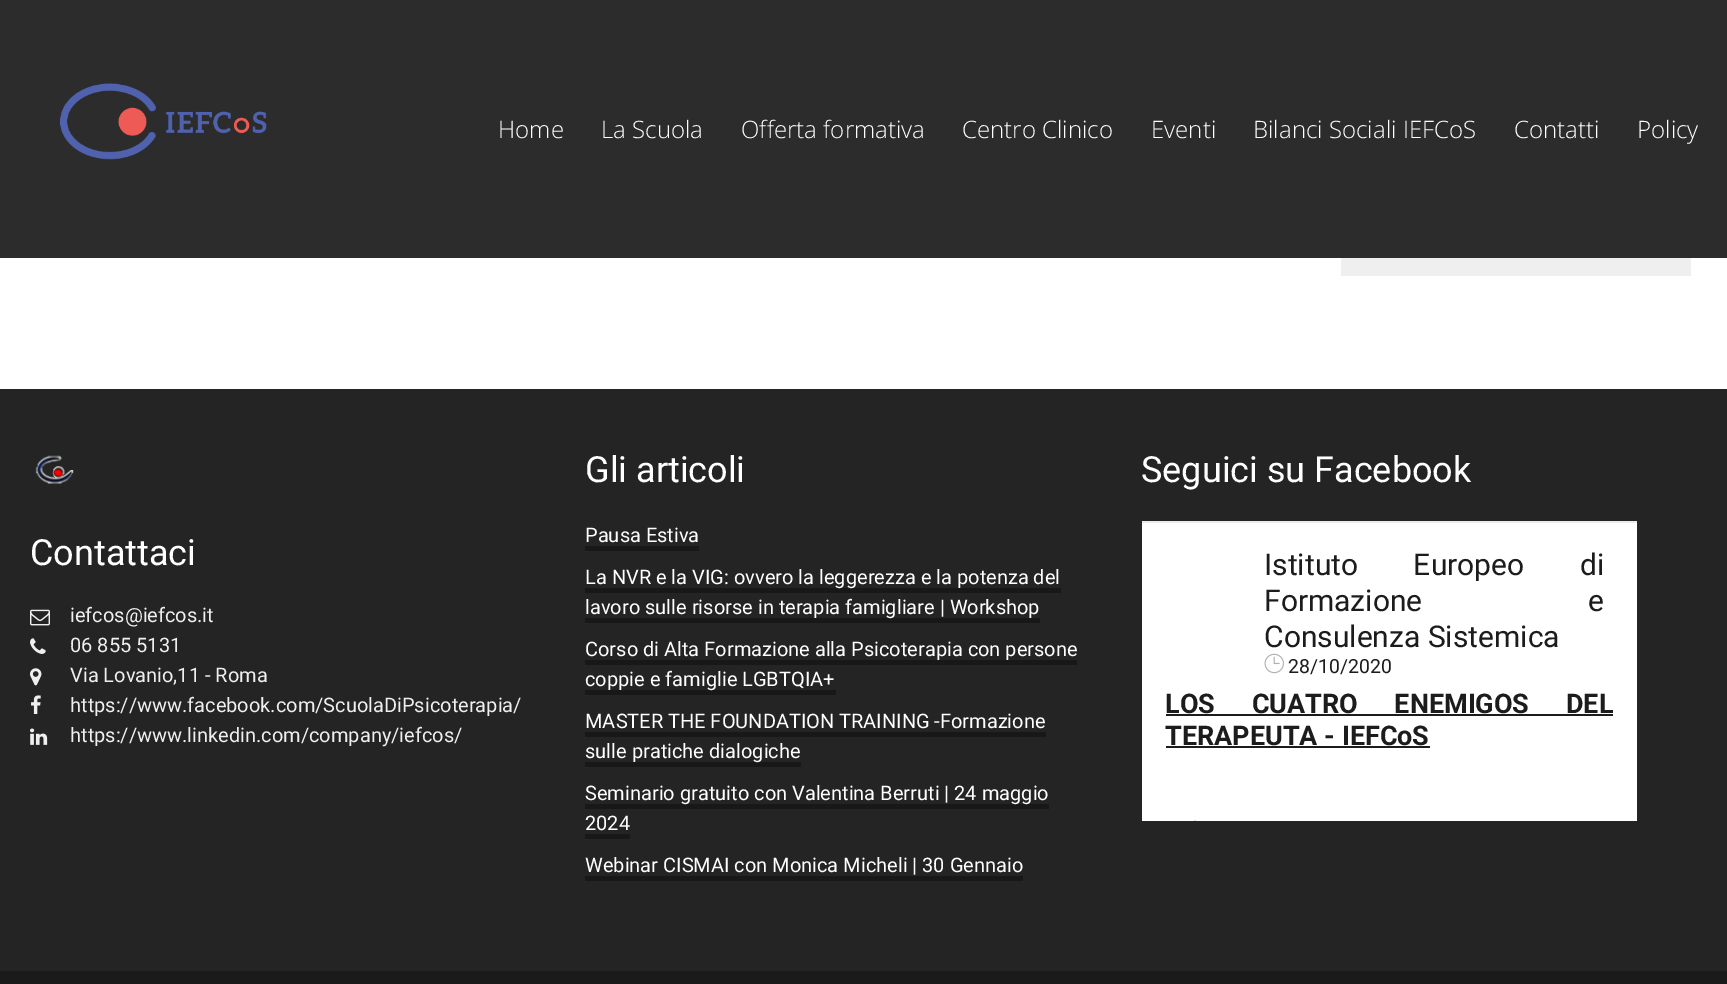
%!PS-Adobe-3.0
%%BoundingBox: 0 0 1727 984
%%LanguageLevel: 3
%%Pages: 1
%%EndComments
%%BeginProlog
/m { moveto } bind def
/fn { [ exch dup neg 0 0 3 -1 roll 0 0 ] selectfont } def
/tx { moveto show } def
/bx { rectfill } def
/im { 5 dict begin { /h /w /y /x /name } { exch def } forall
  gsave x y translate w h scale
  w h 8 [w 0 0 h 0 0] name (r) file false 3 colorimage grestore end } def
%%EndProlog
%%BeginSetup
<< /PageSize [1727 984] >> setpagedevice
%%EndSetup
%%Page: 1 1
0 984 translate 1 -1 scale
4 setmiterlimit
0.141 setgray
0 0 1727 984 bx
0.173 setgray
0 0 1727 258 bx
(image0.raw) 59 83 208 77 im
/OpenSans-Light 24 fn
1 setgray
(Home) 498 138 tx
(La Scuola) 601 138 tx
(Offerta formativa) 741 138 tx
(Centro Clinico) 962 138 tx
(Eventi) 1151 138 tx
(Bilanci Sociali IEFCoS) 1253 138 tx
(Contatti) 1514 138 tx
(Policy) 1637 138 tx
0 258 1727 131 bx
0.937 setgray
1341 258 350 18 bx
(image1.raw) 35 455 39 29 im
/Roboto-Regular 36 fn
1 setgray
(Contattaci) 30 565 tx
(image2.raw) 30 609 20 17 im
/Roboto-Regular 20 fn
0.937 setgray
(iefcos@iefcos.it) 70 622 tx
(image3.raw) 30 638 16 16 im
(06 855 5131) 70 652 tx
(image4.raw) 30 668 12 18 im
(Via Lovanio,11 - Roma) 70 682 tx
(image5.raw) 31 695 10 19 im
(https://www.facebook.com/ScuolaDiPsicoterapia/) 70 712 tx
(image6.raw) 30 728 18 17 im
(https://www.linkedin.com/company/iefcos/) 70 742 tx
/Roboto-Regular 36 fn
1 setgray
(Gli articoli) 585 482 tx
/Roboto-Regular 20 fn
(Pausa Estiva) 585 542 tx
0.094 setgray
585 546 114 5 bx
585 588 476 5 bx
1 setgray
(La NVR e la VIG: ovvero la leggerezza e la potenza del) 585 584 tx
0.094 setgray
585 618 455 5 bx
1 setgray
(lavoro sulle risorse in terapia famigliare | Workshop) 585 614 tx
0.094 setgray
585 660 492 5 bx
1 setgray
(Corso di Alta Formazione alla Psicoterapia con persone) 585 656 tx
0.094 setgray
585 690 251 5 bx
1 setgray
(coppie e famiglie LGBTQIA+) 585 686 tx
(MASTER THE FOUNDATION TRAINING -Formazione) 585 728 tx
0.094 setgray
585 732 461 5 bx
585 762 216 5 bx
1 setgray
(sulle pratiche dialogiche) 585 758 tx
0.094 setgray
585 804 464 5 bx
1 setgray
(Seminario gratuito con Valentina Berruti | 24 maggio) 585 800 tx
(2024) 585 830 tx
0.094 setgray
585 834 45 5 bx
1 setgray
(Webinar CISMAI con Monica Micheli | 30 Gennaio) 585 872 tx
0.094 setgray
585 876 438 5 bx
/Roboto-Regular 36 fn
1 setgray
(Seguici su Facebook) 1141 482 tx
1142 523 495 298 bx
0.922 setgray
1142 521 495 2 bx
/Roboto-Regular 30 fn
0.11 setgray
1264 575 m 48 0 32 (Istituto Europeo di) widthshow
1264 611 m 158 0 32 (Formazione e) widthshow
(Consulenza Sistemica) 1264 647 tx
(image7.raw) 1264 653 20 21 im
/Roboto-Regular 19.5 fn
(28/10/2020) 1288 673 tx
/Roboto-Bold 27 fn
1165 713 m 30 0 32 (LOS CUATRO ENEMIGOS DEL) widthshow
1166 714 447 2 bx
(TERAPEUTA - IEFCoS) 1165 745 tx
1166 746 264 2 bx
(image8.raw) 1194 820 2 1 im
0.102 setgray
0 971 1727 13 bx
showpage
%%EOF
